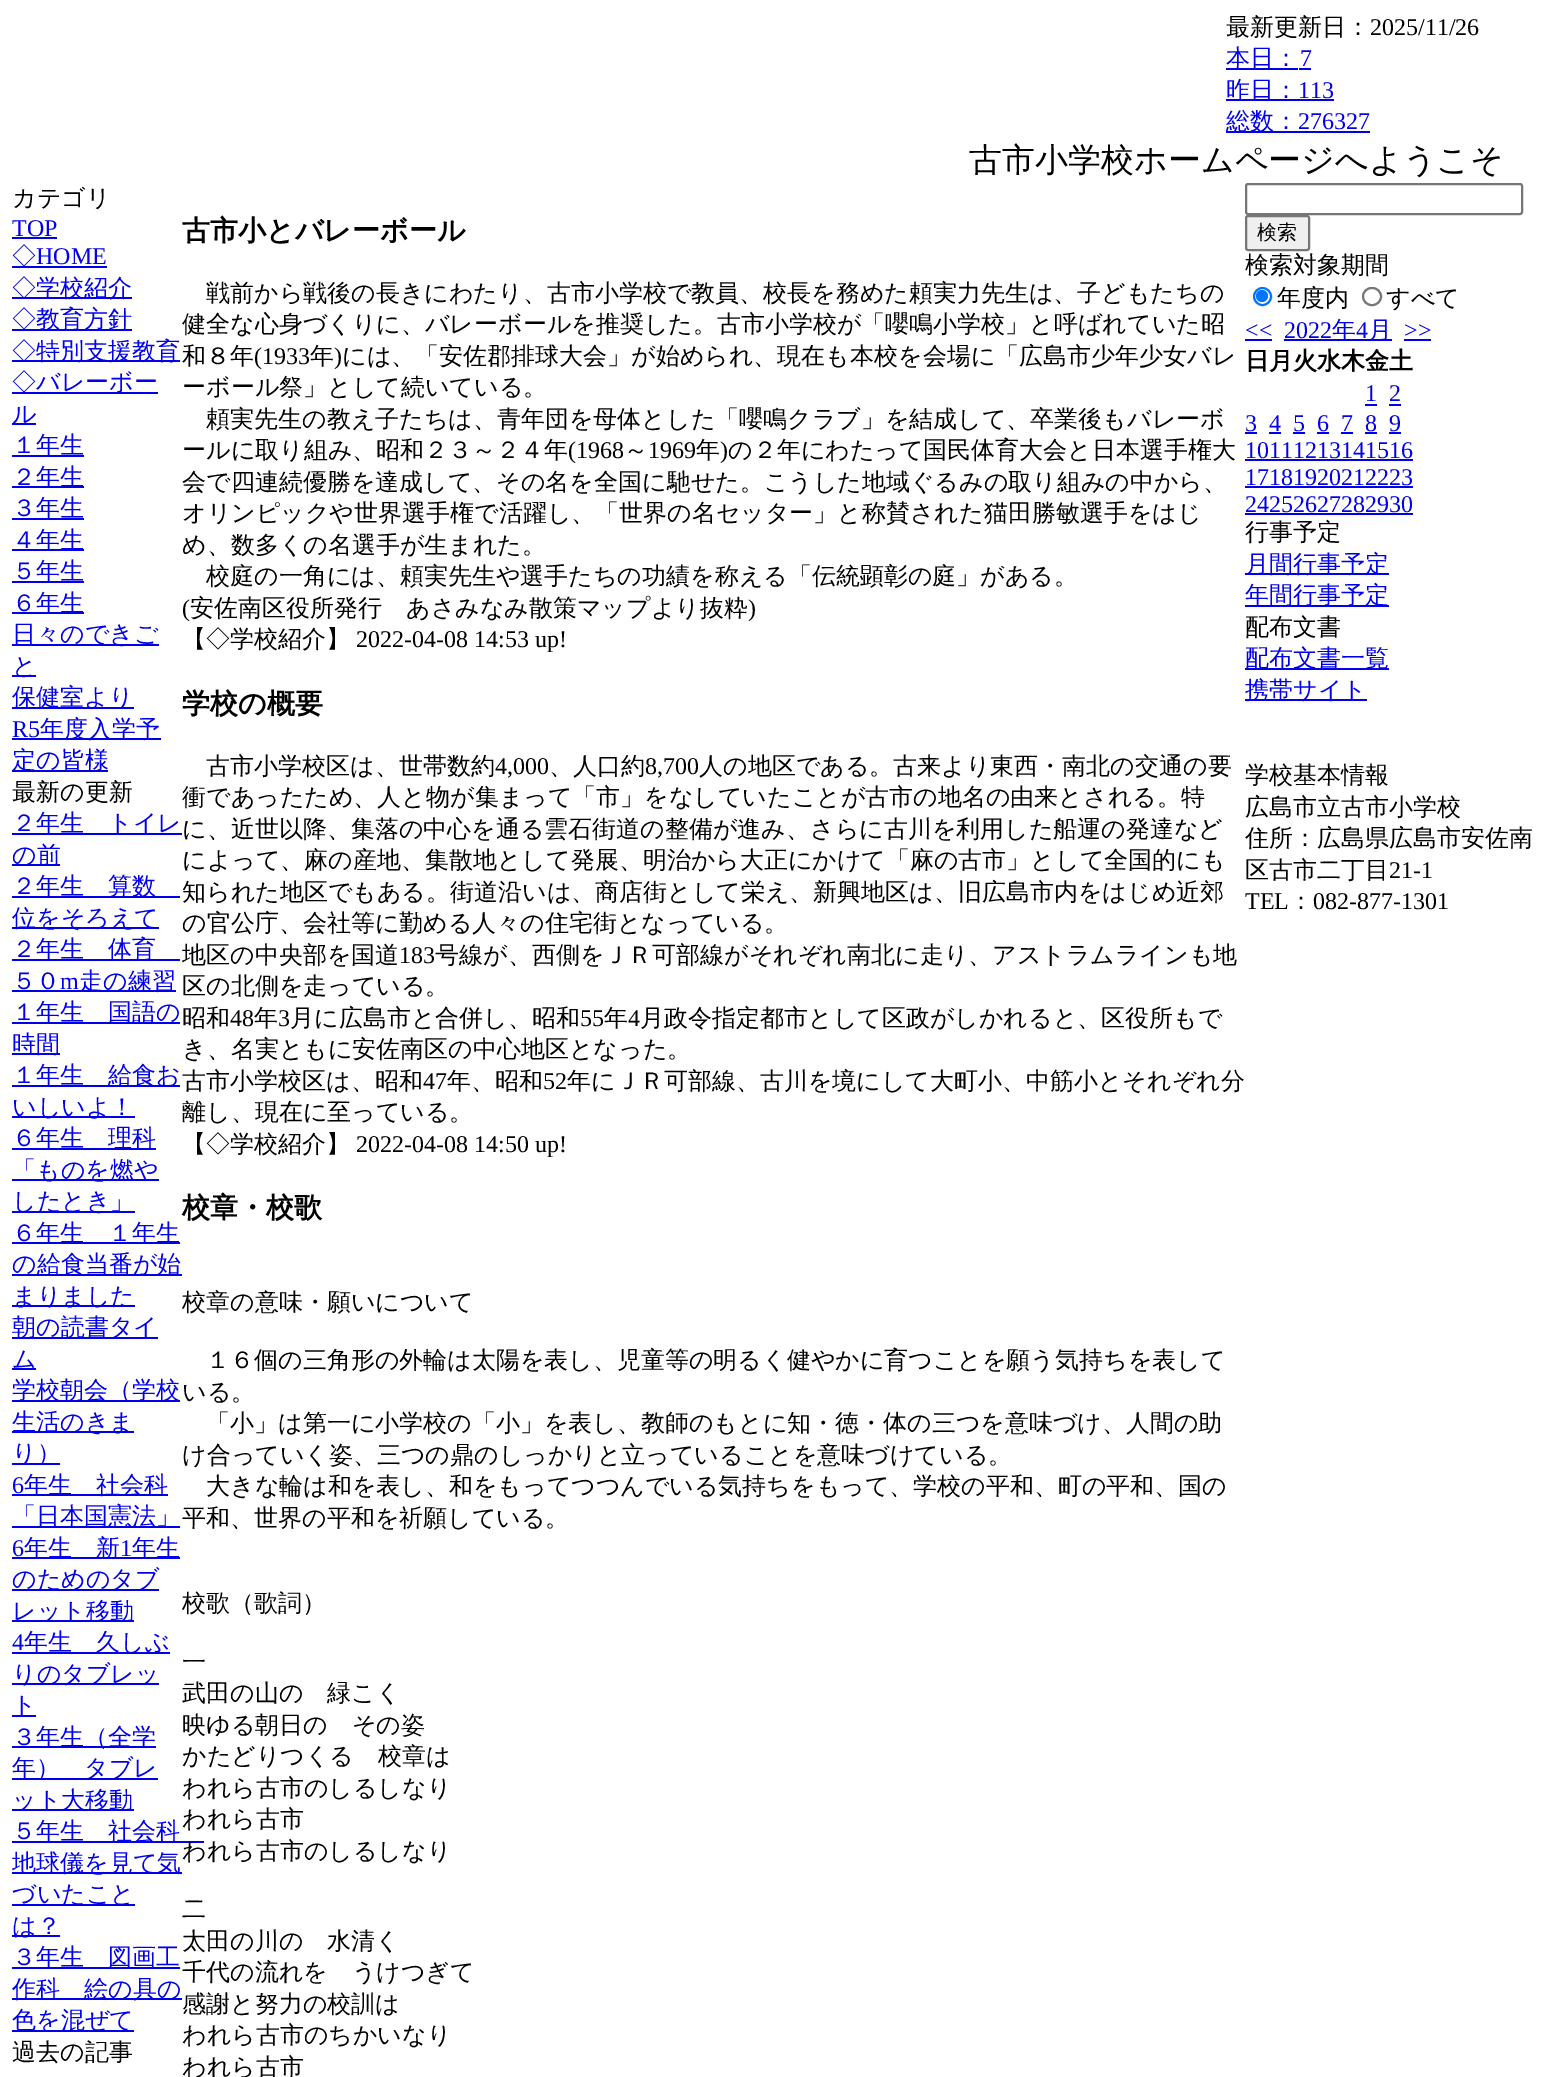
%!PS-Adobe-3.0
%%BoundingBox: 0 0 1568 2077
%%LanguageLevel: 3
%%Pages: 1
%%EndComments
%%BeginProlog
/f { fill } bind def
/S { stroke } bind def
/q { gsave } bind def
/Q { grestore } bind def
/w { setlinewidth } bind def
/fn { [ exch dup neg 0 0 3 -1 roll 0 0 ] selectfont } def
/tx { moveto show } def
/bx { rectfill } def
/ci { newpath 0 360 arc closepath } def
/rr { 5 dict begin { /r /h /w /y /x } { exch def } forall
  x r add y moveto x w add y 2 copy h add r arct x w add y h add x 1 index r arct
  x y h add x y r arct x y 2 copy exch w add exch r arct closepath end } def
%%EndProlog
%%BeginSetup
<< /PageSize [1568 2077] >> setpagedevice
%%EndSetup
%%Page: 1 1
0 2077 translate 1 -1 scale
4 setmiterlimit
1 setgray
0 0 1568 2077 bx
/WenQuanYiZenHei-Medium 24 fn
0 setgray
(最新更新日：) 1226 35 tx
/LiberationSerif-Regular 24 fn
(2025/11/26) 1370 35 tx
0 0 0.933 setrgbcolor
1226 68 72 2 bx
/WenQuanYiZenHei-Medium 24 fn
(本日：) 1226 66 tx
/LiberationSerif-Regular 24 fn
(7) 1300 66 tx
1299 68 12 2 bx
1226 99 108 2 bx
/WenQuanYiZenHei-Medium 24 fn
(昨日：) 1226 98 tx
/LiberationSerif-Regular 24 fn
(113) 1298 98 tx
1226 131 144 2 bx
/WenQuanYiZenHei-Medium 24 fn
(総数：) 1226 129 tx
/LiberationSerif-Regular 24 fn
(276327) 1298 129 tx
/WenQuanYiZenHei-Medium 33 fn
0 setgray
(古市小学校ホームページへようこそ) 969 171 tx
/WenQuanYiZenHei-Medium 24 fn
(カテゴリ) 12 206 tx
/LiberationSerif-Regular 24 fn
0 0 0.933 setrgbcolor
(TOP) 12 236 tx
12 237 45 2 bx
12 266 95 2 bx
/WenQuanYiZenHei-Medium 24 fn
(◇) 12 264 tx
/LiberationSerif-Regular 24 fn
(HOME) 36 264 tx
12 297 120 2 bx
/WenQuanYiZenHei-Medium 24 fn
(◇学校紹介) 12 296 tx
12 329 120 2 bx
(◇教育方針) 12 327 tx
12 360 168 2 bx
(◇特別支援教育) 12 359 tx
12 392 146 2 bx
(◇バレーボー) 12 390 tx
12 423 24 2 bx
(ル) 12 422 tx
12 455 72 2 bx
(１年生) 12 453 tx
12 486 72 2 bx
(２年生) 12 485 tx
12 518 72 2 bx
(３年生) 12 516 tx
12 549 72 2 bx
(４年生) 12 548 tx
12 581 72 2 bx
(５年生) 12 579 tx
12 612 72 2 bx
(６年生) 12 611 tx
12 644 147 2 bx
(日々のできご) 12 642 tx
12 675 24 2 bx
(と) 12 674 tx
12 707 122 2 bx
(保健室より) 12 705 tx
/LiberationSerif-Regular 24 fn
(R5) 12 737 tx
12 738 149 2 bx
/WenQuanYiZenHei-Medium 24 fn
(年度入学予) 40 737 tx
12 770 96 2 bx
(定の皆様) 12 768 tx
0 setgray
(最新の更新) 12 800 tx
0 0 0.933 setrgbcolor
12 833 170 2 bx
(２年生　トイレ) 12 831 tx
12 864 48 2 bx
(の前) 12 863 tx
12 896 168 2 bx
(２年生　算数) 12 894 tx
12 927 147 2 bx
(位をそろえて) 12 926 tx
12 959 168 2 bx
(２年生　体育) 12 957 tx
(５０) 12 989 tx
/LiberationSerif-Regular 24 fn
(m) 60 989 tx
12 990 164 2 bx
/WenQuanYiZenHei-Medium 24 fn
(走の練習) 79 989 tx
12 1022 168 2 bx
(１年生　国語の) 12 1020 tx
12 1053 48 2 bx
(時間) 12 1052 tx
12 1085 168 2 bx
(１年生　給食お) 12 1083 tx
12 1116 123 2 bx
(いしいよ！) 12 1115 tx
12 1148 144 2 bx
(６年生　理科) 12 1146 tx
12 1179 147 2 bx
(「ものを燃や) 12 1178 tx
12 1211 123 2 bx
(したとき」) 12 1209 tx
12 1242 168 2 bx
(６年生　１年生) 12 1241 tx
12 1274 170 2 bx
(の給食当番が始) 12 1272 tx
12 1305 123 2 bx
(まりました) 12 1304 tx
12 1337 146 2 bx
(朝の読書タイ) 12 1335 tx
12 1368 24 2 bx
(ム) 12 1367 tx
12 1400 168 2 bx
(学校朝会（学校) 12 1398 tx
12 1431 122 2 bx
(生活のきま) 12 1430 tx
12 1463 48 2 bx
(り）) 12 1461 tx
/LiberationSerif-Regular 24 fn
(6) 12 1493 tx
12 1494 156 2 bx
/WenQuanYiZenHei-Medium 24 fn
(年生　社会科) 24 1493 tx
12 1526 168 2 bx
(「日本国憲法」) 12 1524 tx
/LiberationSerif-Regular 24 fn
(6) 12 1556 tx
12 1557 168 2 bx
/WenQuanYiZenHei-Medium 24 fn
(年生　新) 24 1556 tx
/LiberationSerif-Regular 24 fn
(1) 120 1556 tx
/WenQuanYiZenHei-Medium 24 fn
(年生) 132 1556 tx
12 1589 147 2 bx
(のためのタブ) 12 1587 tx
12 1620 122 2 bx
(レット移動) 12 1619 tx
/LiberationSerif-Regular 24 fn
(4) 12 1650 tx
12 1652 158 2 bx
/WenQuanYiZenHei-Medium 24 fn
(年生　久しぶ) 24 1650 tx
12 1683 147 2 bx
(りのタブレッ) 12 1682 tx
12 1715 24 2 bx
(ト) 12 1713 tx
12 1746 144 2 bx
(３年生（全学) 12 1745 tx
12 1778 146 2 bx
(年）　タブレ) 12 1776 tx
12 1809 122 2 bx
(ット大移動) 12 1808 tx
12 1841 192 2 bx
(５年生　社会科) 12 1839 tx
12 1872 170 2 bx
(地球儀を見て気) 12 1871 tx
12 1904 123 2 bx
(づいたこと) 12 1902 tx
12 1935 48 2 bx
(は？) 12 1934 tx
12 1967 168 2 bx
(３年生　図画工) 12 1965 tx
12 1998 170 2 bx
(作科　絵の具の) 12 1997 tx
12 2030 122 2 bx
(色を混ぜて) 12 2028 tx
0 setgray
(過去の記事) 12 2060 tx
/WenQuanYiZenHei-Bold 28 fn
(古市小とバレーボール) 182 240 tx
/WenQuanYiZenHei-Medium 24 fn
(戦前から戦後の長きにわたり、古市小学校で教員、校長を務めた頼実力先生は、子どもたちの) 206 301 tx
(健全な心身づくりに、バレーボールを推奨した。古市小学校が「嚶鳴小学校」と呼ばれていた昭) 182 332 tx
(和８年) 182 364 tx
/LiberationSerif-Regular 24 fn
(\(1933) 254 364 tx
/WenQuanYiZenHei-Medium 24 fn
(年) 310 364 tx
/LiberationSerif-Regular 24 fn
(\)) 334 364 tx
/WenQuanYiZenHei-Medium 24 fn
(には、「安佐郡排球大会」が始められ、現在も本校を会場に「広島市少年少女バレ) 342 364 tx
(ーボール祭」として続いている。) 182 395 tx
(頼実先生の教え子たちは、青年団を母体とした「嚶鳴クラブ」を結成して、卒業後もバレーボ) 206 427 tx
(ールに取り組み、昭和２３～２４年) 182 458 tx
/LiberationSerif-Regular 24 fn
(\(1968) 568 458 tx
/WenQuanYiZenHei-Medium 24 fn
(～) 624 458 tx
/LiberationSerif-Regular 24 fn
(1969) 648 458 tx
/WenQuanYiZenHei-Medium 24 fn
(年) 696 458 tx
/LiberationSerif-Regular 24 fn
(\)) 720 458 tx
/WenQuanYiZenHei-Medium 24 fn
(の２年にわたって国民体育大会と日本選手権大) 728 458 tx
(会で四連続優勝を達成して、その名を全国に馳せた。こうした地域ぐるみの取り組みの中から、) 182 490 tx
(オリンピックや世界選手権で活躍し、「世界の名セッター」と称賛された猫田勝敏選手をはじ) 182 521 tx
(め、数多くの名選手が生まれた。) 182 553 tx
(校庭の一角には、頼実先生や選手たちの功績を称える「伝統顕彰の庭」がある。) 206 584 tx
/LiberationSerif-Regular 24 fn
(\() 182 616 tx
/WenQuanYiZenHei-Medium 24 fn
(安佐南区役所発行　あさみなみ散策マップより抜粋) 190 616 tx
/LiberationSerif-Regular 24 fn
(\)) 748 616 tx
/WenQuanYiZenHei-Medium 24 fn
(【◇学校紹介】) 182 647 tx
/LiberationSerif-Regular 24 fn
(2022-04-08 14:53 up!) 356 647 tx
/WenQuanYiZenHei-Bold 28 fn
(学校の概要) 182 713 tx
/WenQuanYiZenHei-Medium 24 fn
(古市小学校区は、世帯数約) 206 774 tx
/LiberationSerif-Regular 24 fn
(4,000) 495 774 tx
/WenQuanYiZenHei-Medium 24 fn
(、人口約) 549 774 tx
/LiberationSerif-Regular 24 fn
(8,700) 645 774 tx
/WenQuanYiZenHei-Medium 24 fn
(人の地区である。古来より東西・南北の交通の要) 699 774 tx
(衝であったため、人と物が集まって「市」をなしていたことが古市の地名の由来とされる。特) 182 805 tx
(に、近世以降、集落の中心を通る雲石街道の整備が進み、さらに古川を利用した船運の発達など) 182 837 tx
(によって、麻の産地、集散地として発展、明治から大正にかけて「麻の古市」として全国的にも) 182 868 tx
(知られた地区でもある。街道沿いは、商店街として栄え、新興地区は、旧広島市内をはじめ近郊) 182 900 tx
(の官公庁、会社等に勤める人々の住宅街となっている。) 182 931 tx
(地区の中央部を国道) 182 963 tx
/LiberationSerif-Regular 24 fn
(183) 399 963 tx
/WenQuanYiZenHei-Medium 24 fn
(号線が、西側をＪＲ可部線がそれぞれ南北に走り、アストラムラインも地) 435 963 tx
(区の北側を走っている。) 182 994 tx
(昭和) 182 1026 tx
/LiberationSerif-Regular 24 fn
(48) 230 1026 tx
/WenQuanYiZenHei-Medium 24 fn
(年) 254 1026 tx
/LiberationSerif-Regular 24 fn
(3) 278 1026 tx
/WenQuanYiZenHei-Medium 24 fn
(月に広島市と合併し、昭和) 290 1026 tx
/LiberationSerif-Regular 24 fn
(55) 580 1026 tx
/WenQuanYiZenHei-Medium 24 fn
(年) 604 1026 tx
/LiberationSerif-Regular 24 fn
(4) 628 1026 tx
/WenQuanYiZenHei-Medium 24 fn
(月政令指定都市として区政がしかれると、区役所もで) 640 1026 tx
(き、名実ともに安佐南区の中心地区となった。) 182 1057 tx
(古市小学校区は、昭和) 182 1089 tx
/LiberationSerif-Regular 24 fn
(47) 423 1089 tx
/WenQuanYiZenHei-Medium 24 fn
(年、昭和) 447 1089 tx
/LiberationSerif-Regular 24 fn
(52) 543 1089 tx
/WenQuanYiZenHei-Medium 24 fn
(年にＪＲ可部線、古川を境にして大町小、中筋小とそれぞれ分) 567 1089 tx
(離し、現在に至っている。) 182 1120 tx
(【◇学校紹介】) 182 1152 tx
/LiberationSerif-Regular 24 fn
(2022-04-08 14:50 up!) 356 1152 tx
/WenQuanYiZenHei-Bold 28 fn
(校章・校歌) 182 1217 tx
/WenQuanYiZenHei-Medium 24 fn
(校章の意味・願いについて) 182 1310 tx
(１６個の三角形の外輪は太陽を表し、児童等の明るく健やかに育つことを願う気持ちを表して) 206 1368 tx
(いる。) 182 1400 tx
(「小」は第一に小学校の「小」を表し、教師のもとに知・徳・体の三つを意味づけ、人間の助) 206 1431 tx
(け合っていく姿、三つの鼎のしっかりと立っていることを意味づけている。) 182 1463 tx
(大きな輪は和を表し、和をもってつつんでいる気持ちをもって、学校の平和、町の平和、国の) 206 1494 tx
(平和、世界の平和を祈願している。) 182 1526 tx
(校歌（歌詞）) 182 1611 tx
(一) 182 1670 tx
(武田の山の　緑こく) 182 1701 tx
(映ゆる朝日の　その姿) 182 1733 tx
(かたどりつくる　校章は) 182 1764 tx
(われら古市のしるしなり) 182 1796 tx
(われら古市) 182 1827 tx
(われら古市のしるしなり) 182 1859 tx
(二) 182 1917 tx
(太田の川の　水清く) 182 1949 tx
(千代の流れを　うけつぎて) 182 1980 tx
(感謝と努力の校訓は) 182 2012 tx
(われら古市のちかいなり) 182 2043 tx
(われら古市) 182 2075 tx
0.463 setgray
2 w
1246 184 276 30 2 rr S
0.937 setgray
1246 216 63 34 2 rr q f Q
0.463 setgray
S
/WenQuanYiZenHei-Medium 20 fn
0 setgray
(検索) 1257 239 tx
/WenQuanYiZenHei-Medium 24 fn
(検索対象期間) 1245 273 tx
0 0.459 1 setrgbcolor
1262.5 296.5 8.5 ci S
1262 296 6 ci f
0 setgray
(年度内) 1277 306 tx
0.463 setgray
1363 288 18 17 8.5 rr S
0 setgray
(すべて) 1386 306 tx
/LiberationSerif-Regular 24 fn
0 0 0.933 setrgbcolor
(<<) 1245 338 tx
1245 339 27 2 bx
(2022) 1284 338 tx
1284 339 108 2 bx
/WenQuanYiZenHei-Medium 24 fn
(年) 1332 338 tx
/LiberationSerif-Regular 24 fn
(4) 1356 338 tx
/WenQuanYiZenHei-Medium 24 fn
(月) 1368 338 tx
/LiberationSerif-Regular 24 fn
(>>) 1404 338 tx
1404 339 27 2 bx
/WenQuanYiZenHei-Bold 24 fn
0 setgray
(日月火水木金土) 1245 369 tx
/LiberationSerif-Regular 24 fn
0 0 0.933 setrgbcolor
(1) 1365 401 tx
1365 404 12 2 bx
(2) 1389 401 tx
1389 404 12 2 bx
(3) 1245 431 tx
1245 432 12 2 bx
(4) 1269 431 tx
1269 432 12 2 bx
(5) 1293 431 tx
1293 432 12 2 bx
(6) 1317 431 tx
1317 432 12 2 bx
(7) 1341 431 tx
1341 432 12 2 bx
(8) 1365 431 tx
1365 432 12 2 bx
(9) 1389 431 tx
1389 432 12 2 bx
(10111213141516) 1245 458 tx
1245 459 168 2 bx
(17181920212223) 1245 485 tx
1245 486 168 2 bx
(24252627282930) 1245 512 tx
1245 513 168 2 bx
/WenQuanYiZenHei-Medium 24 fn
0 setgray
(行事予定) 1245 540 tx
0 0 0.933 setrgbcolor
1245 573 144 2 bx
(月間行事予定) 1245 572 tx
1245 605 144 2 bx
(年間行事予定) 1245 603 tx
0 setgray
(配布文書) 1245 635 tx
0 0 0.933 setrgbcolor
1245 668 144 2 bx
(配布文書一覧) 1245 666 tx
1245 699 122 2 bx
(携帯サイト) 1245 698 tx
0 setgray
(学校基本情報) 1245 783 tx
(広島市立古市小学校) 1245 815 tx
(住所：広島県広島市安佐南) 1245 846 tx
(区古市二丁目) 1245 878 tx
/LiberationSerif-Regular 24 fn
(21-1) 1389 878 tx
(TEL) 1245 909 tx
/WenQuanYiZenHei-Medium 24 fn
(：) 1289 909 tx
/LiberationSerif-Regular 24 fn
(082-877-1301) 1313 909 tx
showpage
%%EOF
